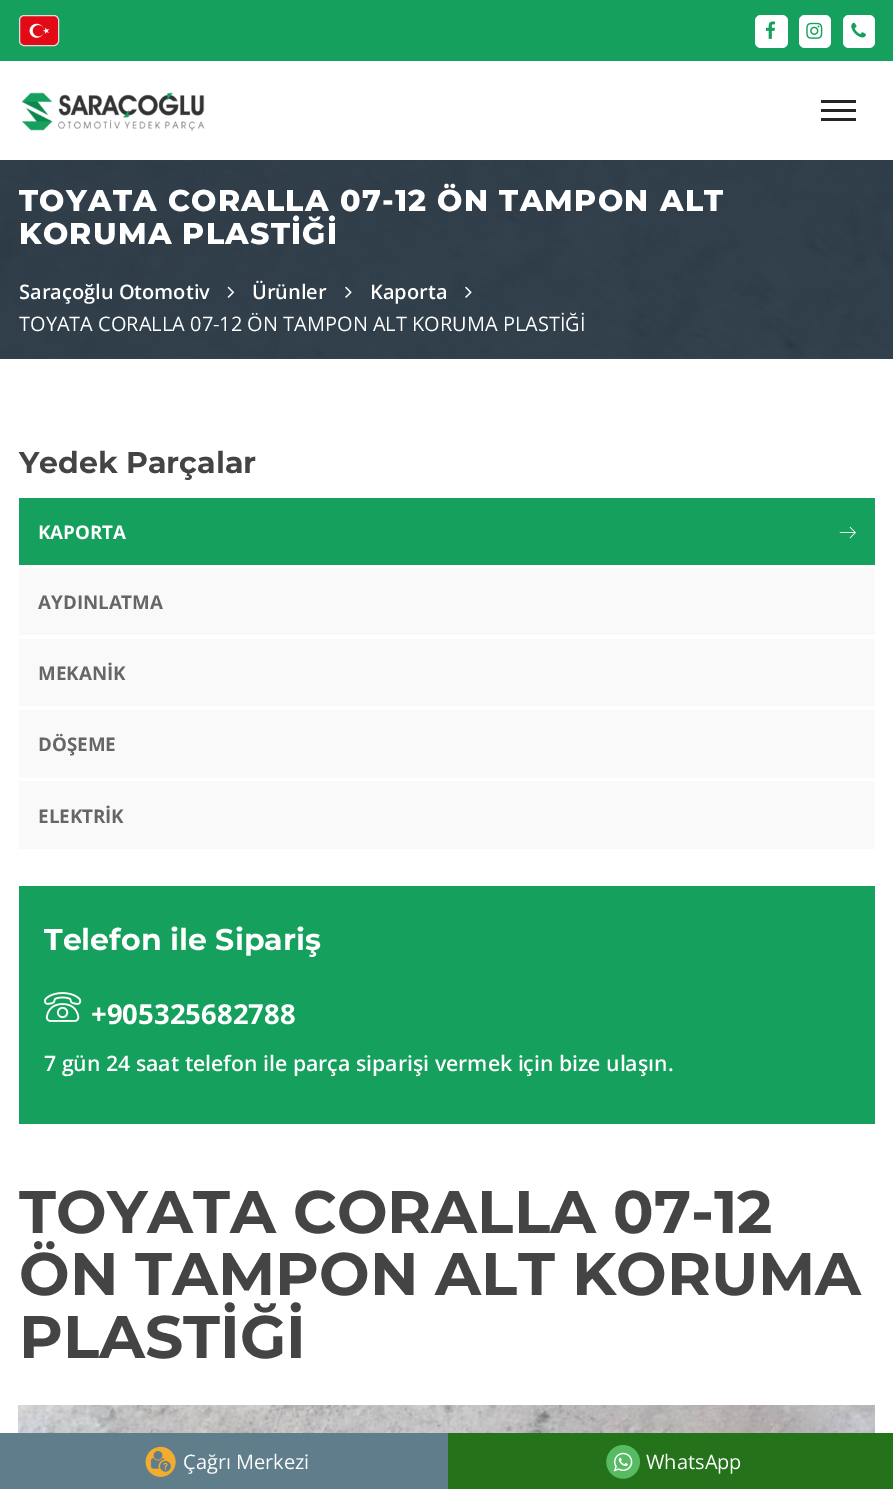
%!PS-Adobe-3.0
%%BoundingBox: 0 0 893 1489
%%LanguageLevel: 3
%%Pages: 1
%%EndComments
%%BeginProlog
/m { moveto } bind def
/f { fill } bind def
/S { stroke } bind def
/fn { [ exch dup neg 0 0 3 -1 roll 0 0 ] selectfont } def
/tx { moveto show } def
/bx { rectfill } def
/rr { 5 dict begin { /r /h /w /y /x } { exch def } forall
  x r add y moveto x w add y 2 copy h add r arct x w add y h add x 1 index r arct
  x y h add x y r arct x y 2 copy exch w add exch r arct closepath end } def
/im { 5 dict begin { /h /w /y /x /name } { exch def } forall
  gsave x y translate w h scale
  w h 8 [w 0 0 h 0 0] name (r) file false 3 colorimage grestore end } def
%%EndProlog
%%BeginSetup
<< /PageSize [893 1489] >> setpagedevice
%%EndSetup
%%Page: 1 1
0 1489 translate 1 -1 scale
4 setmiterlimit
1 setgray
0 0 893 1489 bx
0.086 0.627 0.365 setrgbcolor
0 0 893 61 bx
(image0.raw) 20 16 38 29 im
0.867 setgray
19.5 15.5 39 30 4.5 rr S
1 setgray
755 15 33 33 6 rr f
(image1.raw) 766 21 10 18 im
799 15 32 33 6 rr f
(image2.raw) 806 22 17 17 im
843 15 32 33 6 rr f
(image3.raw) 851 22 15 16 im
(image4.raw) 21 92 184 39 im
0.145 setgray
821 100 35 3 bx
821 109 35 3 bx
821 118 35 3 bx
(image5.raw) 0 160 893 199 im
/Montserrat-ExtraBold 30 fn
1 setgray
19 211 m 1.25 0 (TOYATA CORALLA 07-12 ÖN TAMPON ALT) ashow
19 244 m 1.25 0 (KORUMA PLASTİĞİ) ashow
/OpenSans-SemiBold 20 fn
(Saraçoğlu Otomotiv) 19 299 tx
(image6.raw) 227 286 8 12 im
(Ürünler) 252 299 tx
(image7.raw) 345 286 7 12 im
(Kaporta) 370 299 tx
(image8.raw) 465 286 7 12 im
/OpenSans-Regular 20 fn
(TOYATA CORALLA 07-12 ÖN TAMPON ALT KORUMA PLASTİĞİ) 19 331 tx
/Montserrat-Bold 30 fn
0.267 setgray
(Yedek Parçalar) 19 473 tx
0.086 0.627 0.365 setrgbcolor
19 498 856 67 bx
/OpenSans-Bold 18.75 fn
1 setgray
(KAPORTA) 38 539 tx
(image9.raw) 839 526 17 13 im
0.976 setgray
19 568 856 67 bx
0.4 setgray
(AYDINLATMA) 38 609 tx
0.976 setgray
19 639 856 67 bx
0.4 setgray
(MEKANİK) 38 680 tx
0.976 setgray
19 710 856 68 bx
0.4 setgray
(DÖŞEME) 38 751 tx
0.976 setgray
19 781 856 68 bx
0.4 setgray
(ELEKTRİK) 38 823 tx
0.086 0.627 0.365 setrgbcolor
19 886 856 238 bx
/Montserrat-Bold 30 fn
1 setgray
(Telefon ile Sipariş) 44 950 tx
(image10.raw) 44 992 38 30 im
/OpenSans-Bold 27.5 fn
(+905325682788) 91 1024 tx
/OpenSans-SemiBold 21.25 fn
(7 gün 24 saat telefon ile parça siparişi vermek için bize ulaşın.) 44 1071 tx
/Montserrat-Bold 60 fn
0.267 setgray
(TOYATA CORALLA 07-12) 19 1233 tx
(ÖN TAMPON ALT KORUMA) 19 1295 tx
(PLASTİĞİ) 19 1358 tx
(image11.raw) 18 1405 857 28 im
0.376 0.49 0.545 setrgbcolor
0 1433 448 56 bx
(image12.raw) 145 1446 31 31 im
/OpenSans-Regular 20 fn
1 setgray
(Çağrı Merkezi) 183 1469 tx
0.141 0.451 0.102 setrgbcolor
448 1433 445 56 bx
(image13.raw) 606 1445 34 34 im
1 setgray
(WhatsApp) 646 1469 tx
showpage
%%EOF
